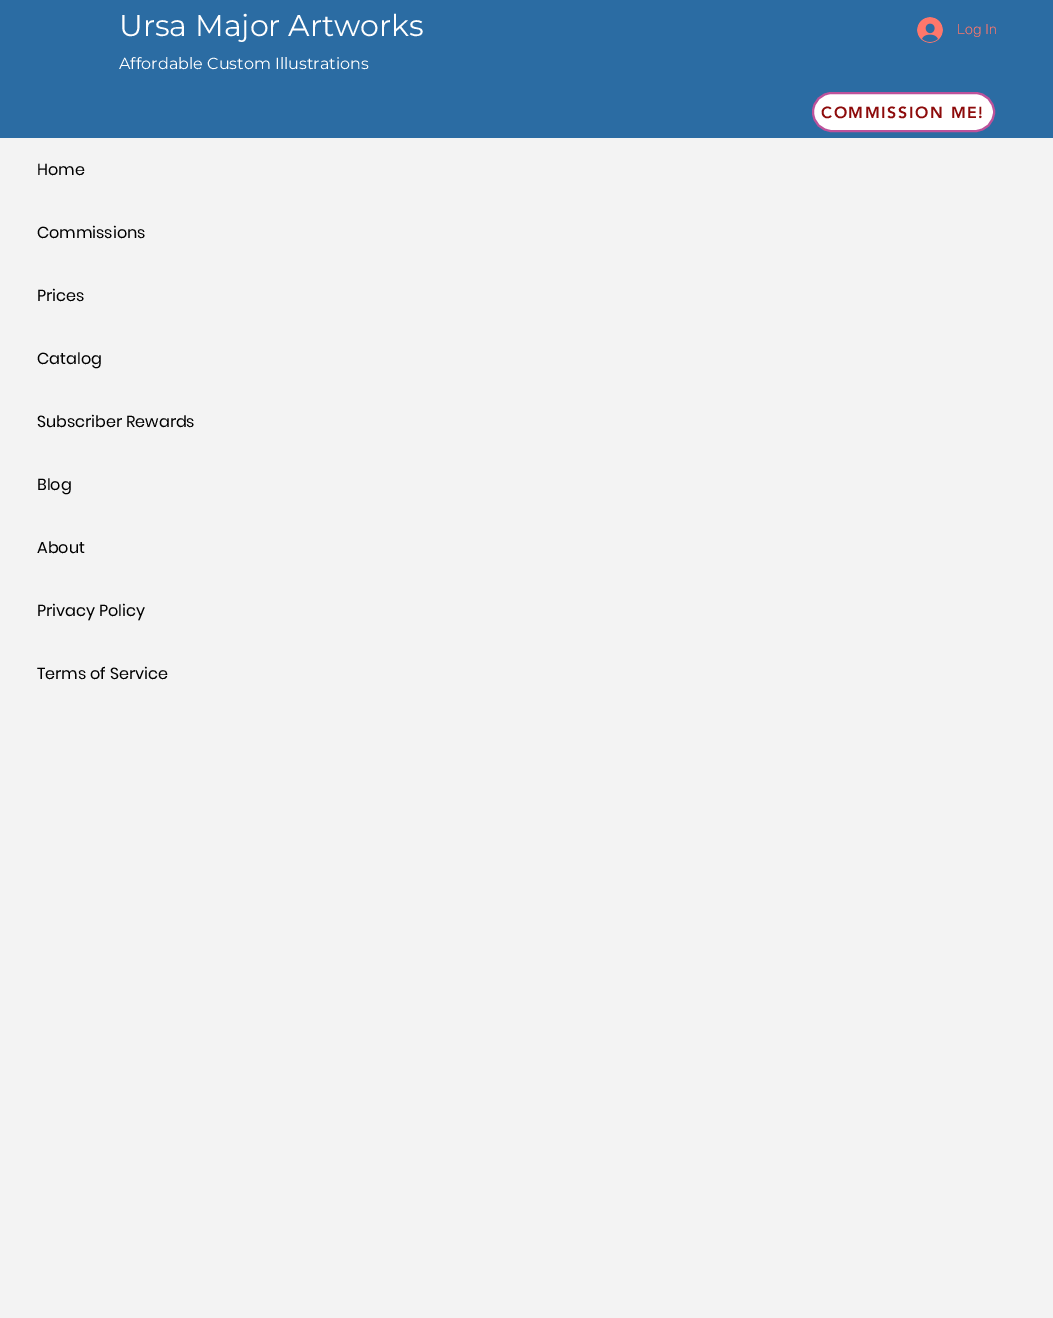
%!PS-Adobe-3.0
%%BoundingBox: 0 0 1053 1318
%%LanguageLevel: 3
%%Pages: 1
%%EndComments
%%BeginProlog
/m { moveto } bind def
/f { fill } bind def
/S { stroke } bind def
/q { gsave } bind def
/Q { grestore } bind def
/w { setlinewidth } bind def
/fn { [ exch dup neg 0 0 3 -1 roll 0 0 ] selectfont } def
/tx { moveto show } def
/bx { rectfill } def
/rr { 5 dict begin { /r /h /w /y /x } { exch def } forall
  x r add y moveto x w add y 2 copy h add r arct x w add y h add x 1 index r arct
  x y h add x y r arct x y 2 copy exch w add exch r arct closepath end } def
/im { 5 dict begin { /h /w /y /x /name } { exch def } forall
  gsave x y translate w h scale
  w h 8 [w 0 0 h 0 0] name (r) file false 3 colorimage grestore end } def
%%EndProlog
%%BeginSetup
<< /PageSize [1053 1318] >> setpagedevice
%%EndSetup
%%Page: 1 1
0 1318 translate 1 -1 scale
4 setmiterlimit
0.953 setgray
0 0 1053 1318 bx
0.169 0.424 0.639 setrgbcolor
0 0 1053 138 bx
/Montserrat-Regular 30 fn
1 setgray
(Ursa Major Artworks) 119 36 tx
/Montserrat-Regular 16 fn
(Affordable Custom Illustrations) 119 69 tx
(image0.raw) 917 17 26 26 im
/helvetica-Light 14 fn
1 0.467 0.42 setrgbcolor
(Log In) 957 34 tx
1 setgray
813 93 181 38 19 rr q f Q
0.741 0.322 0.608 setrgbcolor
2 w
S
/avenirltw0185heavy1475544-Black 16 fn
0.553 0.043 0.043 setrgbcolor
821 118 m 1.6 0 (COMMISSION ME!) ashow
/Poppins-Regular 16 fn
0 setgray
(Home) 37 175 tx
(Commissions) 37 238 tx
(Prices) 37 301 tx
(Catalog) 37 364 tx
(Subscriber Rewards) 37 427 tx
(Blog) 37 490 tx
(About) 37 553 tx
(Privacy Policy) 37 616 tx
(Terms of Service) 37 679 tx
showpage
%%EOF
